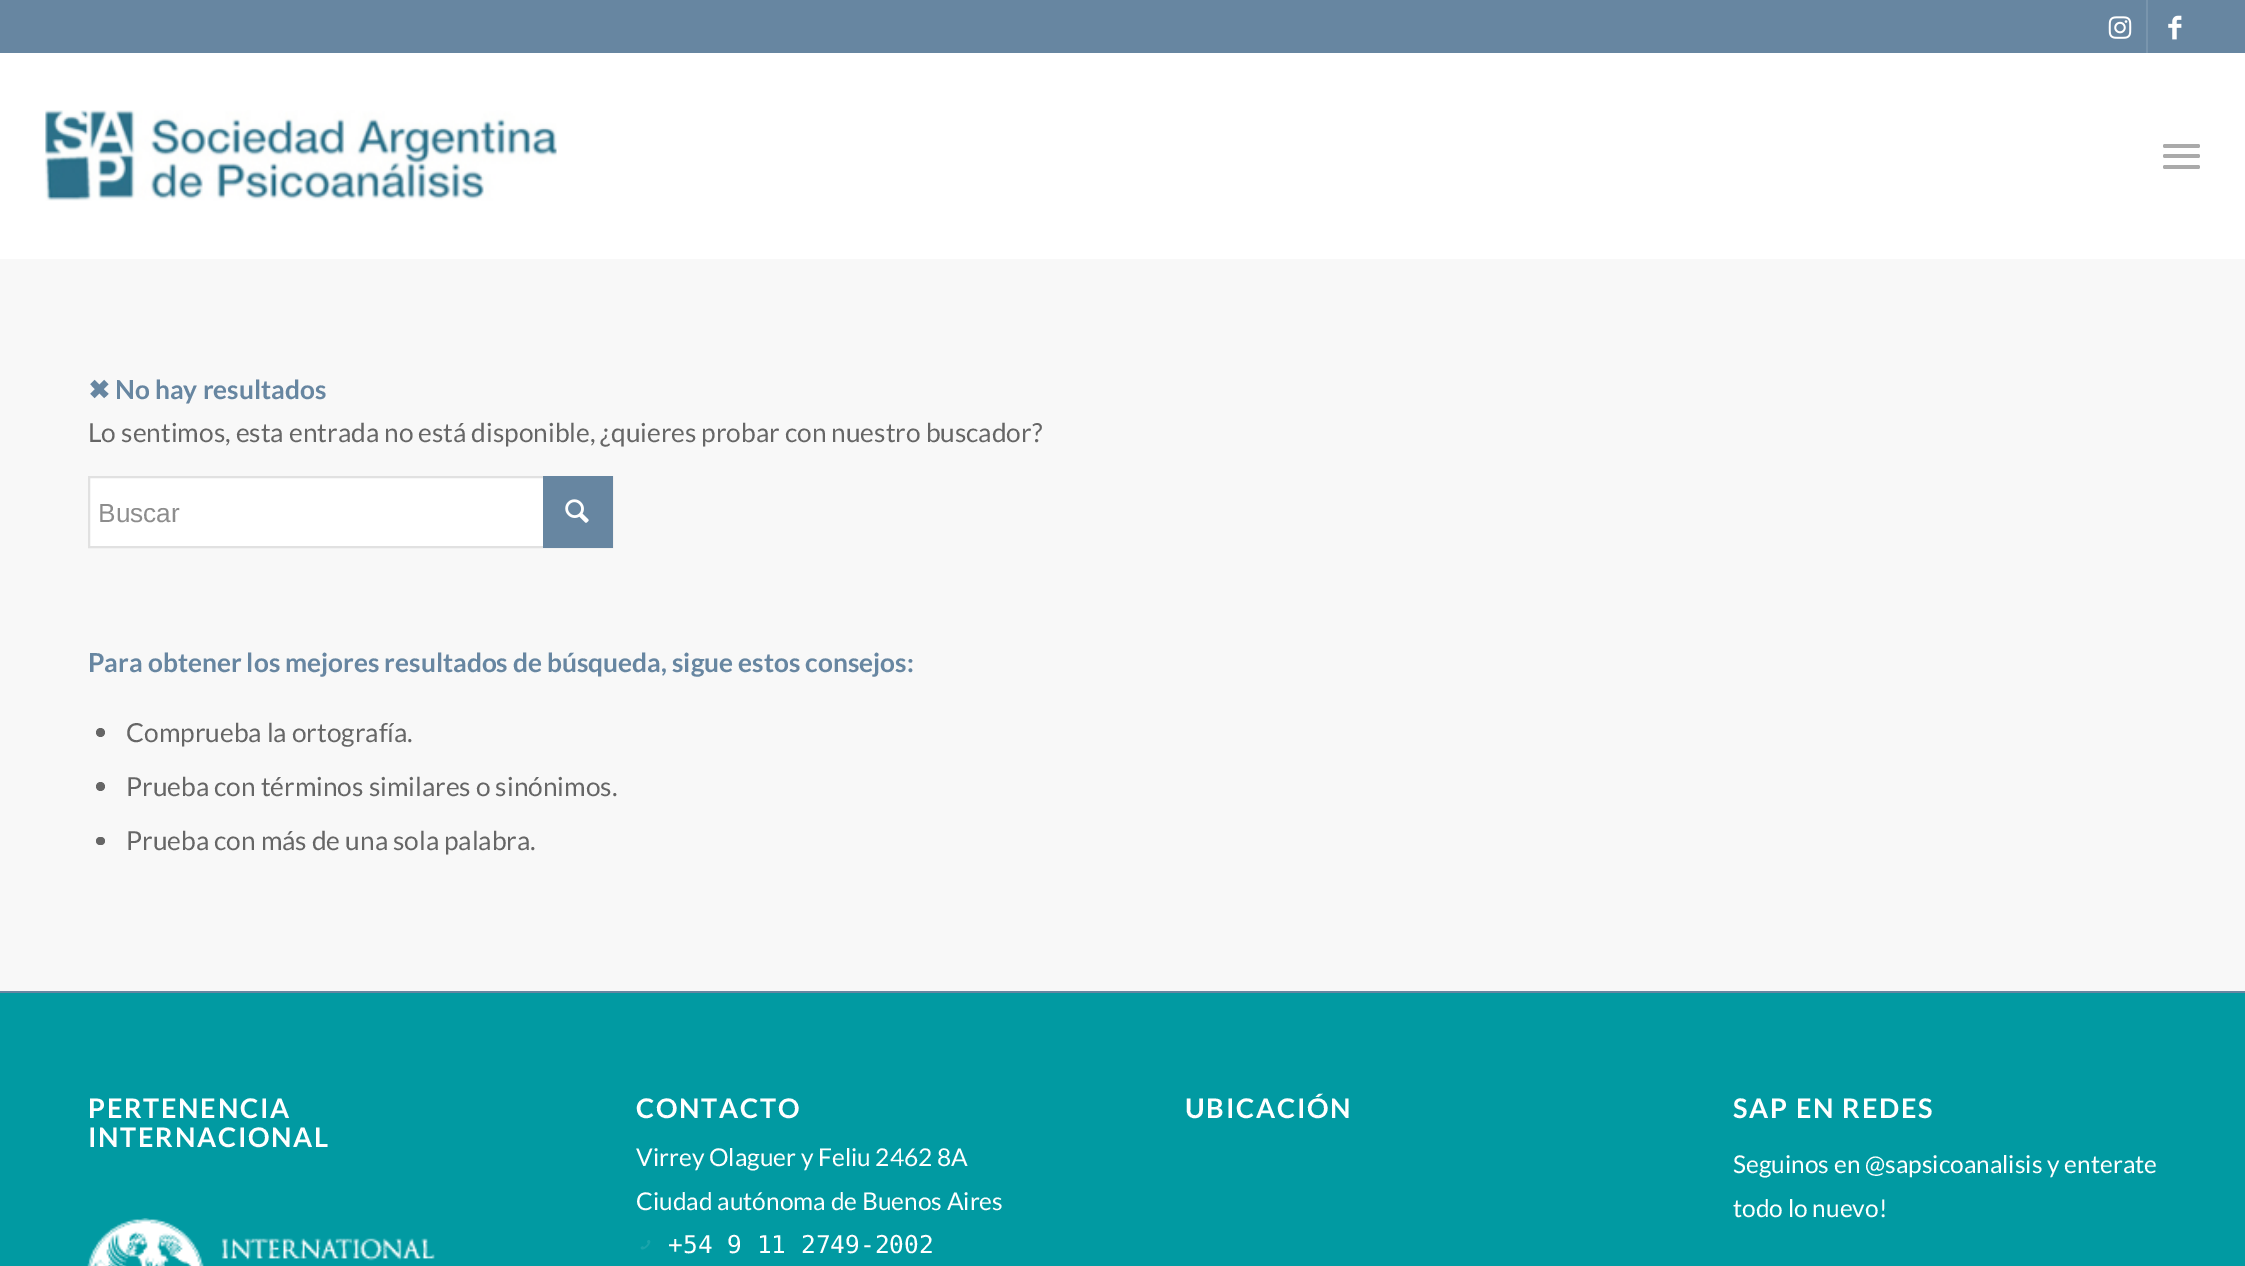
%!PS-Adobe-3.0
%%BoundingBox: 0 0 2245 1266
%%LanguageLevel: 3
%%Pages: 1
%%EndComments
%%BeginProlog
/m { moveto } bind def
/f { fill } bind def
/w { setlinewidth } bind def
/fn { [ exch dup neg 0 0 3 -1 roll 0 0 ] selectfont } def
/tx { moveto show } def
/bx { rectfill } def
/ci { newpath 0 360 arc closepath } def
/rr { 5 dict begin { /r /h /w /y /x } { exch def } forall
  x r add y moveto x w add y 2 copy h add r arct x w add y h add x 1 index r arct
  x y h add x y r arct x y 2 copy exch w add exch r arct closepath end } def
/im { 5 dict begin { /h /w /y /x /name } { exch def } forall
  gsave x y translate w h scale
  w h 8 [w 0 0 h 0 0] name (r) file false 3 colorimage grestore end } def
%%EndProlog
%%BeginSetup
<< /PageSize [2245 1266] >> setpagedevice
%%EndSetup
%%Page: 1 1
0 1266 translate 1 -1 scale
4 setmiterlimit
0.973 setgray
0 0 2245 1266 bx
0.404 0.525 0.631 setrgbcolor
0 0 2245 53 bx
0.475 0.584 0.678 setrgbcolor
2146 0 2 53 bx
(image0.raw) 2108 16 24 23 im
(image1.raw) 2168 15 14 25 im
1 setgray
0 53 2245 206 bx
(image2.raw) 45 110 512 91 im
0.667 setgray
2163 154 37 4 2 rr f
2163 144 37 4 2 rr f
2163 165 37 4 2 rr f
/DejaVuSans-Bold 26.25 fn
0.404 0.525 0.631 setrgbcolor
(✖) 88 399 tx
/Lato-Bold 26.25 fn
(No hay resultados) 115 399 tx
/Lato-Regular 26.25 fn
0.4 setgray
(Lo sentimos, esta entrada no está disponible, ¿quieres probar con nuestro buscador?) 88 442 tx
1 setgray
90 478 453 68 bx
0.882 setgray
2 w
89 477 523 70 rectstroke
/LiberationSans-Regular 26.25 fn
0.553 setgray
(Buscar) 98 522 tx
0.404 0.525 0.631 setrgbcolor
543 476 70 72 bx
(image3.raw) 565 499 24 24 im
/Lato-Bold 26.25 fn
(Para obtener los mejores resultados de búsqueda, sigue estos consejos:) 88 672 tx
0.4 setgray
100.5 732.5 4.5 ci f
/Lato-Regular 26.25 fn
(Comprueba la ortografía.) 126 742 tx
100.5 786.5 4.5 ci f
(Prueba con términos similares o sinónimos.) 126 796 tx
96 837 9 8 4 rr f
(Prueba con más de una sola palabra.) 126 850 tx
0.004 0.604 0.635 setrgbcolor
0 993 2245 273 bx
0.404 0.525 0.631 setrgbcolor
0 991 2245 2 bx
/Lato-Bold 27 fn
1 setgray
88 1118 m 1.75 0 (PERTENENCIA) ashow
88 1147 m 1.75 0 (INTERNACIONAL) ashow
(image4.raw) 87 1218 348 48 im
636 1118 m 1.75 0 (CONTACTO) ashow
/Lato-Regular 24.5 fn
(Virrey Olaguer y Feliu 2462 8A) 636 1166 tx
(Ciudad autónoma de Buenos Aires) 636 1210 tx
(image5.raw) 640 1240 11 10 im
/DejaVuSansMono-Regular 24.5 fn
(+54 9 11 2749-2002) 668 1253 tx
/Lato-Bold 27 fn
1185 1118 m 1.75 0 (UBICACIÓN) ashow
1733 1118 m 1.75 0 (SAP EN REDES) ashow
/Lato-Regular 24.5 fn
(Seguinos en @sapsicoanalisis y enterate) 1733 1173 tx
(todo lo nuevo!) 1733 1217 tx
showpage
%%EOF
